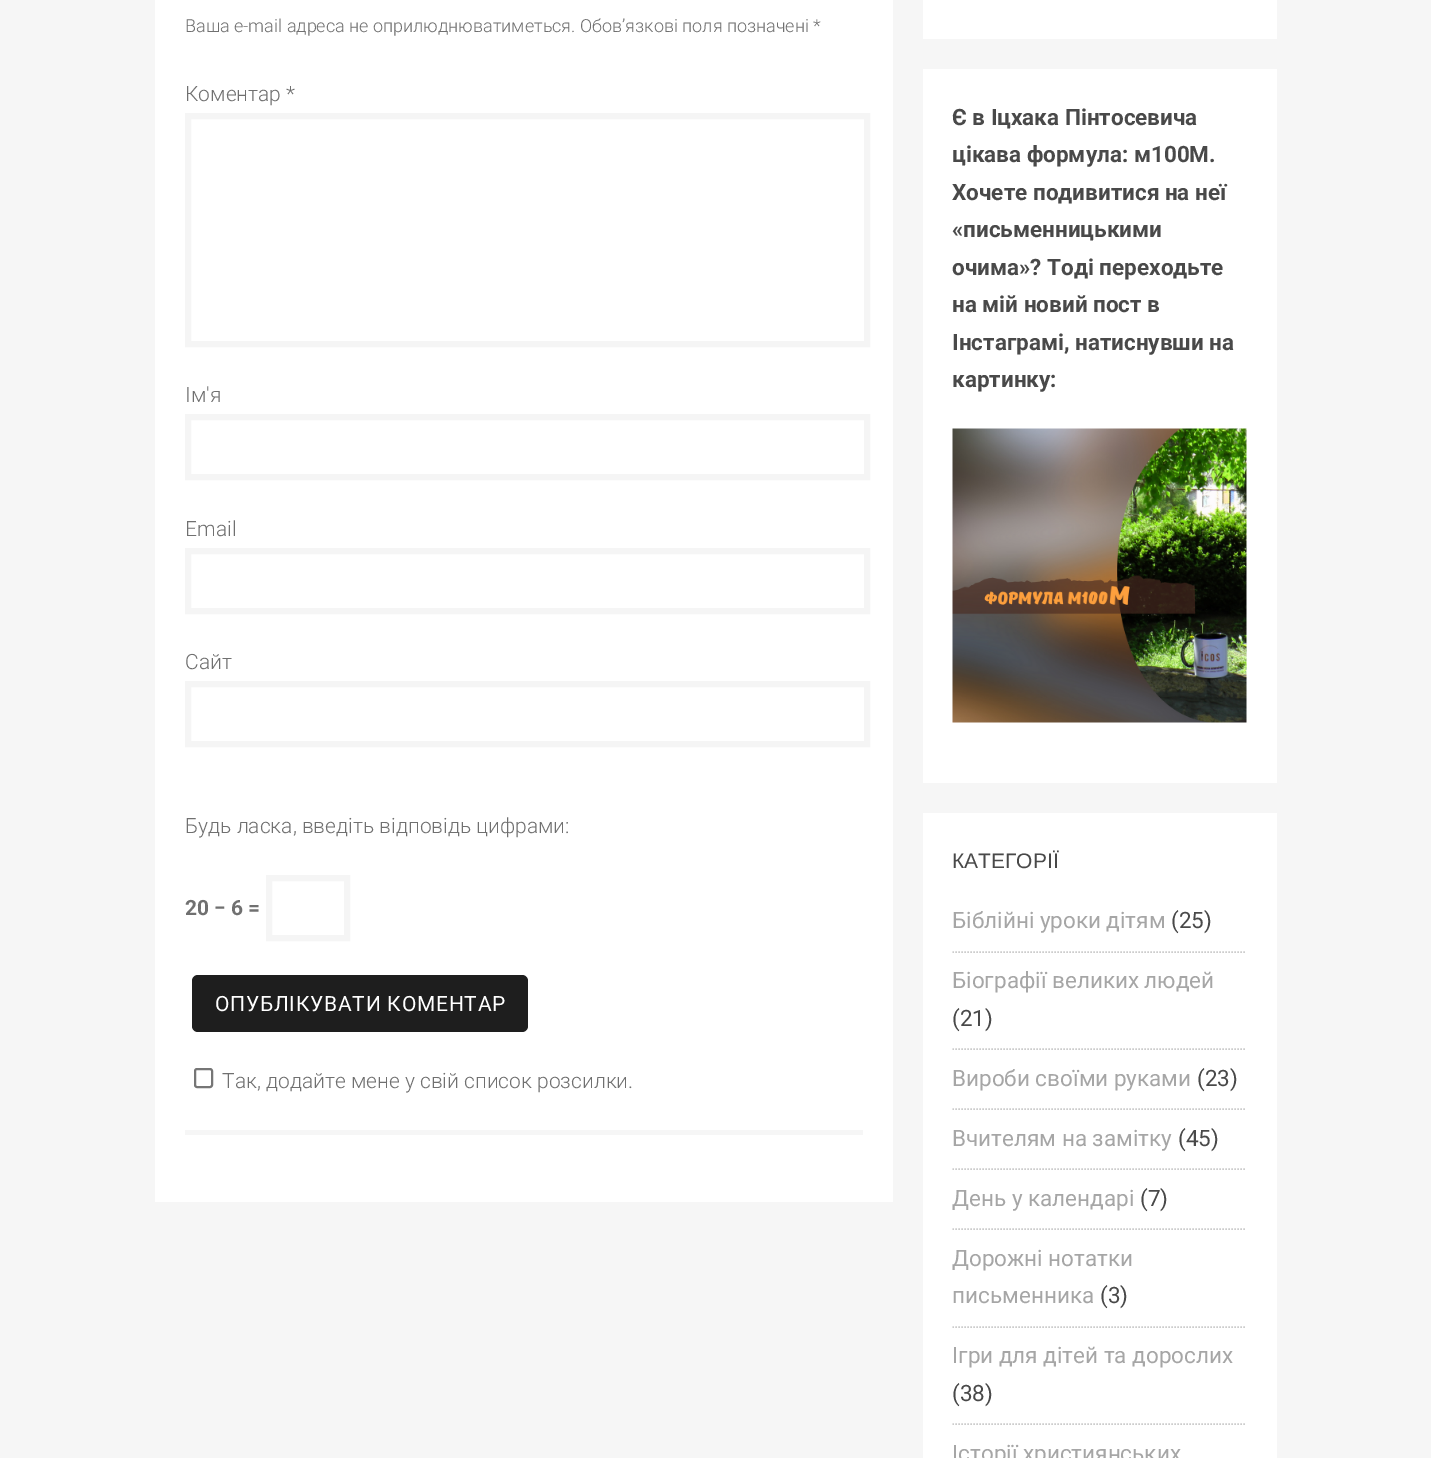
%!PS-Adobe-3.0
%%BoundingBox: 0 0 1431 1458
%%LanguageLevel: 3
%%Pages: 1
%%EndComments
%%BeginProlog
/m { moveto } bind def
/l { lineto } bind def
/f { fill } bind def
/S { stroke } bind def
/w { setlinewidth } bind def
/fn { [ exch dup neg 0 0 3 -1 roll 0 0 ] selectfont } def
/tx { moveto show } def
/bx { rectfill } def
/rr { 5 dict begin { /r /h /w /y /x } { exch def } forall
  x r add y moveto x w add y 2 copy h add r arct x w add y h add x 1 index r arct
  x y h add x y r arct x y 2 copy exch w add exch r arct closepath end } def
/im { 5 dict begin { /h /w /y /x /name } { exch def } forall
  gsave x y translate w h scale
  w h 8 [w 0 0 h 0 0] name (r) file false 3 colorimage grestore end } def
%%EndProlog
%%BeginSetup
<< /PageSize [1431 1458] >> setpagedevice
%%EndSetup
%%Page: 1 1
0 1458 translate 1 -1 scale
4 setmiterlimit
0.965 setgray
0 0 1431 1458 bx
1 setgray
155 0 738 1202 bx
0.965 setgray
185 1130 678 5 bx
/Roboto-Light 18 fn
0.439 setgray
(Ваша e-mail адреса не оприлюднюватиметься. Обов’язкові поля позначені *) 185 32 tx
/Roboto-Light 21 fn
(Коментар *) 185 101 tx
0.961 setgray
6 w
188 116 679 228 rectstroke
0.439 setgray
(Ім'я) 185 402 tx
0.961 setgray
188 417 679 60 rectstroke
0.439 setgray
(Email) 185 536 tx
0.961 setgray
188 551 679 60 rectstroke
0.439 setgray
(Сайт) 185 669 tx
0.961 setgray
188 684 679 60 rectstroke
0.439 setgray
(Будь ласка, введіть відповідь цифрами:) 185 833 tx
/Roboto-Bold 21 fn
(20 − 6 =) 185 915 tx
0.961 setgray
269 878 78 60 rectstroke
0.118 setgray
192 975 336 57 6 rr f
/Roboto-Regular 21 fn
1 setgray
215 1011 m 0.75 0 (ОПУБЛІКУВАТИ КОМЕНТАР) ashow
0.463 setgray
2 w
195 1069 17 18 2 rr S
/Roboto-Light 21 fn
0.439 setgray
(Так, додайте мене у свій список розсилки.) 222 1088 tx
1 setgray
923 0 354 39 bx
923 69 354 714 bx
/Roboto-Bold 22.5 fn
0.286 setgray
(Є в Іцхака Пінтосевича) 952 125 tx
(цікава формула: м100М.) 952 162 tx
(Хочете подивитися на неї) 952 200 tx
(«письменницькими) 952 237 tx
(очима»? Тоді переходьте) 952 275 tx
(на мій новий пост в) 952 312 tx
(Інстаграмі, натиснувши на) 952 350 tx
(картинку:) 952 387 tx
(image0.raw) 952 428 295 295 im
1 setgray
923 813 354 645 bx
/LiberationSans-Regular 21 fn
0.286 setgray
(КАТЕГОРІЇ) 952 868 tx
0.8 setgray
1.5 w
[1.5 1.5] 0 setdash
952.5 952 m 1246.5 952 l S
/Roboto-Regular 22.5 fn
0.651 setgray
(Біблійні уроки дітям) 952 928 tx
0.286 setgray
(\(25\)) 1171 928 tx
0.8 setgray
952.5 1049 m 1246.5 1049 l S
0.651 setgray
(Біографії великих людей) 952 988 tx
0.286 setgray
(\(21\)) 952 1026 tx
0.8 setgray
952.5 1109 m 1246.5 1109 l S
0.651 setgray
(Вироби своїми руками) 952 1086 tx
0.286 setgray
(\(23\)) 1197 1086 tx
0.8 setgray
952.5 1169 m 1246.5 1169 l S
0.651 setgray
(Вчителям на замітку) 952 1146 tx
0.286 setgray
(\(45\)) 1178 1146 tx
0.8 setgray
952.5 1229 m 1246.5 1229 l S
0.651 setgray
(День у календарі) 952 1206 tx
0.286 setgray
(\(7\)) 1140 1206 tx
0.8 setgray
952.5 1327 m 1246.5 1327 l S
0.651 setgray
(Дорожні нотатки) 952 1266 tx
(письменника) 952 1303 tx
0.286 setgray
(\(3\)) 1100 1303 tx
0.8 setgray
952.5 1424 m 1246.5 1424 l S
0.651 setgray
(Ігри для дітей та дорослих) 952 1363 tx
0.286 setgray
(\(38\)) 952 1401 tx
0.651 setgray
(Історії християнських) 952 1461 tx
showpage
%%EOF
